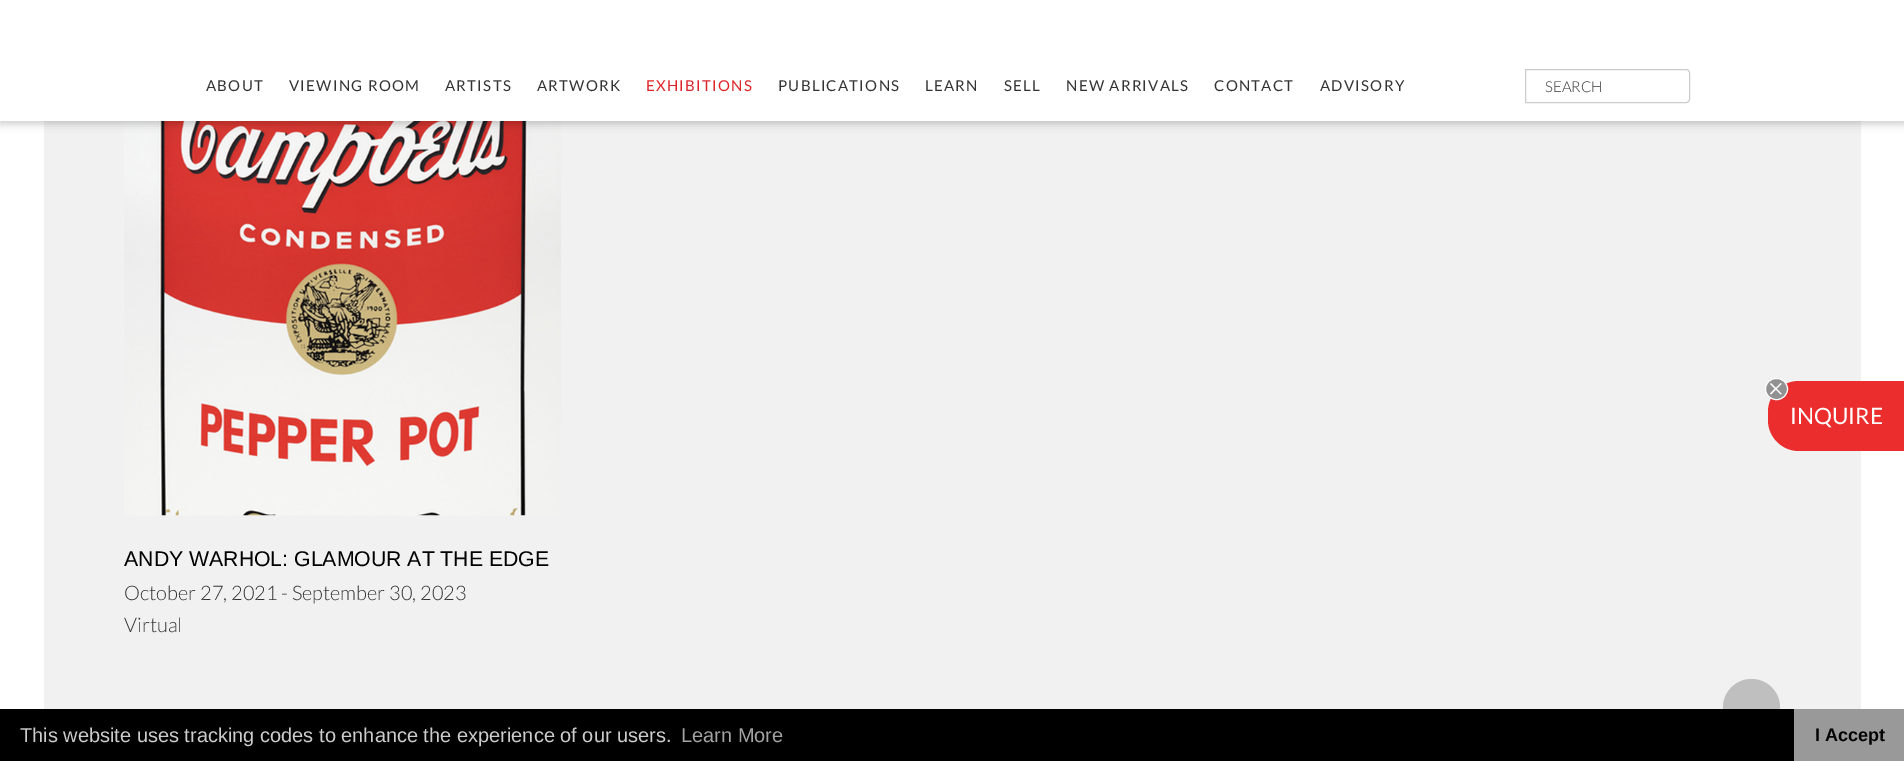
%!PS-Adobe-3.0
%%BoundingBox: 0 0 1904 761
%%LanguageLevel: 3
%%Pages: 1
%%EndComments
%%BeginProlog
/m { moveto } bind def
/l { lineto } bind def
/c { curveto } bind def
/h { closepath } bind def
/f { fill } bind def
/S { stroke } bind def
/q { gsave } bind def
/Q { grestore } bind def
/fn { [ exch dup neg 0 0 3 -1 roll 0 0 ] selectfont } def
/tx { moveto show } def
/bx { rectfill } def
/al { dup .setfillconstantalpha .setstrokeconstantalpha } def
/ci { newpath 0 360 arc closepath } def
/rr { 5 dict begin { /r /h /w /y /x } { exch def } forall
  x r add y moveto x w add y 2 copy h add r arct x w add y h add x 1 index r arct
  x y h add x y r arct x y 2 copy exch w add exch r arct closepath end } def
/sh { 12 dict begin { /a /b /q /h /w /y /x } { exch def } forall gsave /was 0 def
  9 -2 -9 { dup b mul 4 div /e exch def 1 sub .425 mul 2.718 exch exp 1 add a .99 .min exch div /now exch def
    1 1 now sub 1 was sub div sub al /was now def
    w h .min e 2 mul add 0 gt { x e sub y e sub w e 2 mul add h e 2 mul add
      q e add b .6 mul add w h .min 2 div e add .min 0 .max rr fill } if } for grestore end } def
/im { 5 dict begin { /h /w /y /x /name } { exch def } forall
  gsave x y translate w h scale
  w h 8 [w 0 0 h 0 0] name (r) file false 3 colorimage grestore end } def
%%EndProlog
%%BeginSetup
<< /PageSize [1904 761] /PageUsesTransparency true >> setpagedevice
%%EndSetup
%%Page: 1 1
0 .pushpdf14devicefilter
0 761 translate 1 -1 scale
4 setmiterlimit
1 setgray
0 0 1904 761 bx
0.945 setgray
44 121 1817 588 bx
(image0.raw) 124 121 437 395 im
0 setgray
0 3 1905 121 0 4 0.2 sh
1 setgray
0 0 1904 121 bx
/Lato-Regular 15 fn
0.2 setgray
206 91 m 1.25 0 (ABOUT) ashow
289 91 m 1.25 0 (VIEWING ROOM) ashow
445 91 m 1.25 0 (ARTISTS) ashow
537 91 m 1.25 0 (ARTWORK) ashow
0.871 0.141 0.161 setrgbcolor
646 91 m 1.25 0 (EXHIBITIONS) ashow
0.2 setgray
778 91 m 1.25 0 (PUBLICATIONS) ashow
925 91 m 1.25 0 (LEARN) ashow
1004 91 m 1.25 0 (SELL) ashow
1066 91 m 1.25 0 (NEW ARRIVALS) ashow
1214 91 m 1.25 0 (CONTACT) ashow
1320 91 m 1.25 0 (ADVISORY) ashow
0.8 setgray
1525.5 69.5 m 1686 69.5 l 1688 69.5 1689.5 71 1689.5 73 c 1689.5 99 l 1689.5 101 1688 102.5 1686 102.5 c 1525.5 102.5 l h S
/Lato-Light 15 fn
0.2 setgray
(SEARCH) 1545 92 tx
0.922 0.176 0.176 setrgbcolor
1799 381 m 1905 381 l 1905 451 l 1799 451 l 1782 451 1768 437 1768 420 c 1768 412 l 1768 395 1782 381 1799 381 c h f
0.573 setgray
1765.5 378.5 22 21 10.5 rr q f Q
1 setgray
S
1770 393.5 m 1781 383 l 1781.5 384 l 1771 394.5 l h f
1771 383 m 1781.5 393.5 l 1781 394.5 l 1770 384 l h f
/Lato-Regular 22.5 fn
(INQUIRE) 1790 424 tx
/LiberationSans-Regular 21.25 fn
0 setgray
(ANDY WARHOL: GLAMOUR AT THE EDGE) 124 566 tx
/Lato-Light 20 fn
0.2 setgray
(October 27, 2021 - September 30, 2023) 124 600 tx
(Virtual) 124 632 tx
0.44 al
0.498 setgray
1751.5 707.5 28.5 ci f
1 al
0 setgray
0 709 1794 52 bx
/LiberationSans-Regular 20 fn
0.8 setgray
(This website uses tracking codes to enhance the experience of our users.) 20 742 tx
0.639 setgray
(Learn More) 681 742 tx
0.6 setgray
1794 709 110 52 bx
/LiberationSans-Bold 18 fn
0 setgray
(I Accept) 1815 741 tx
.poppdf14devicefilter showpage
%%EOF
